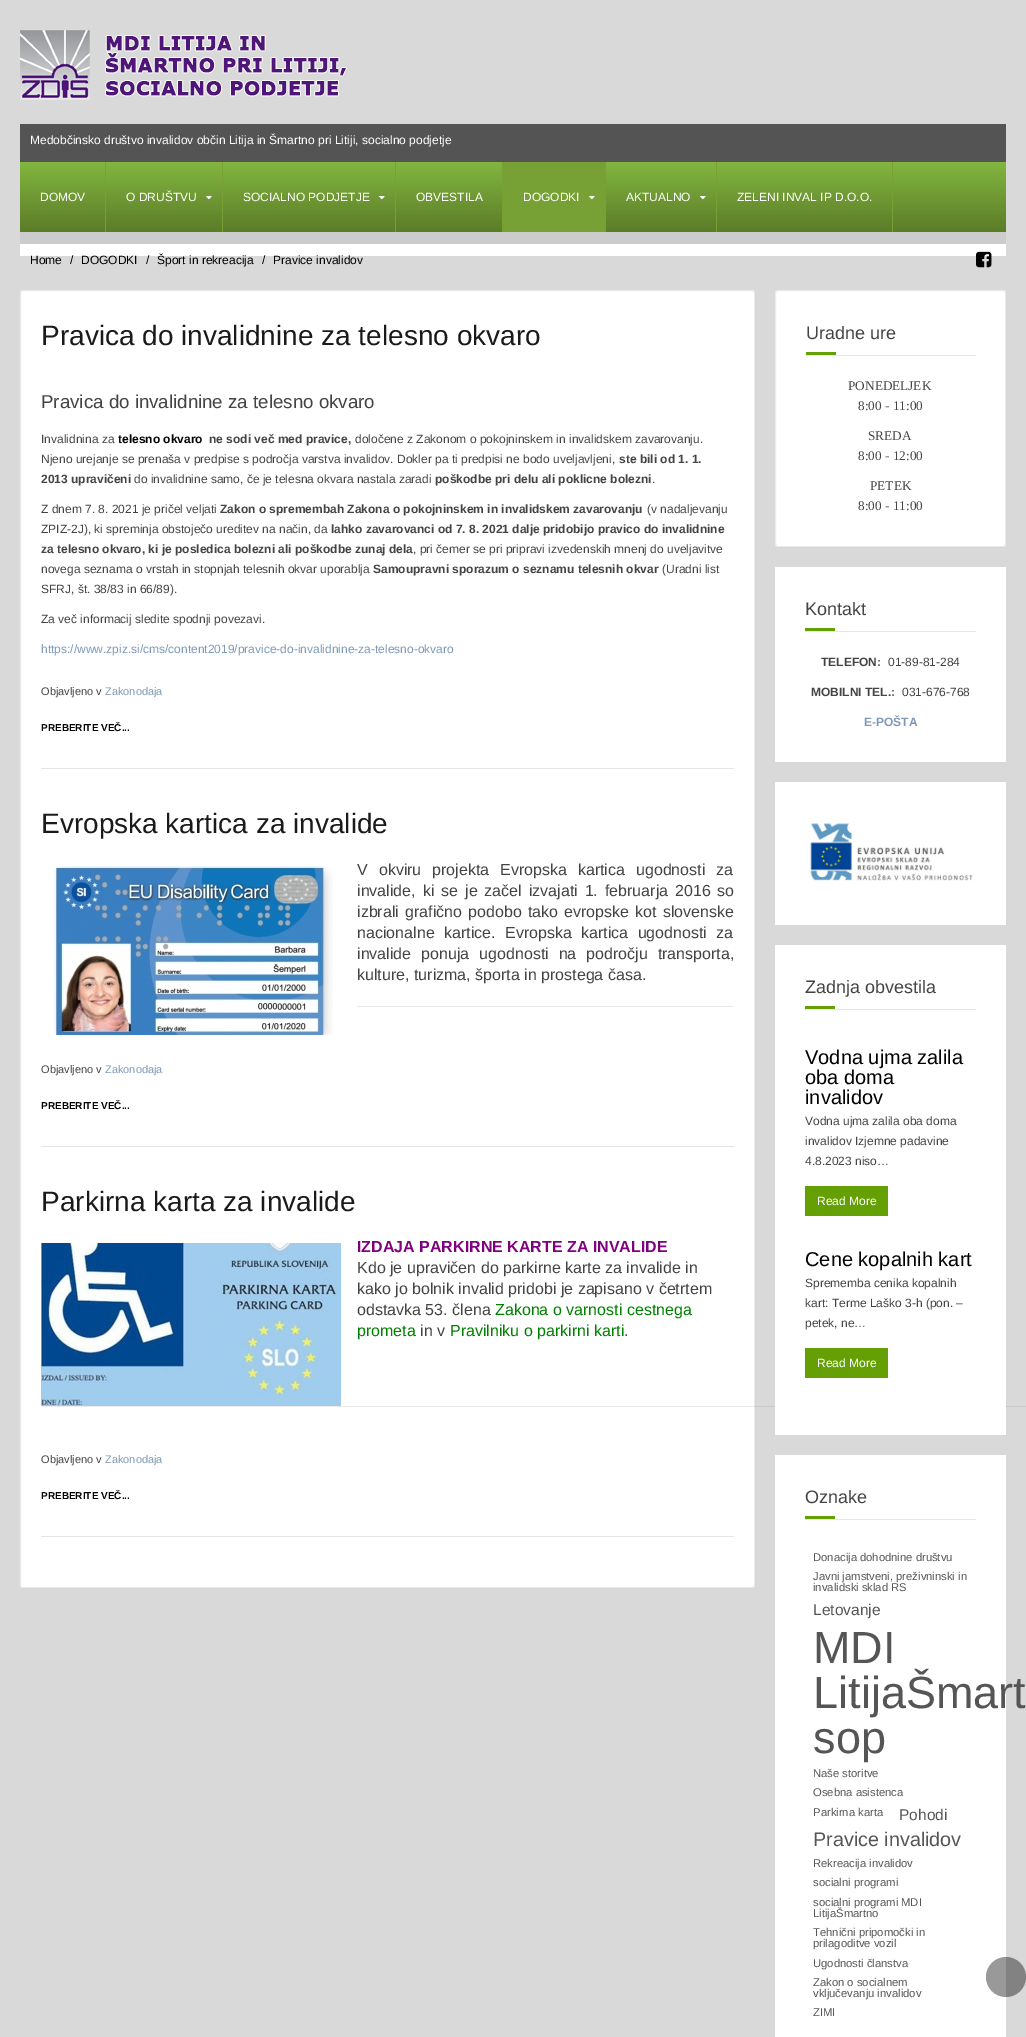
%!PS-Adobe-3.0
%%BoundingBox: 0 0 1026 2037
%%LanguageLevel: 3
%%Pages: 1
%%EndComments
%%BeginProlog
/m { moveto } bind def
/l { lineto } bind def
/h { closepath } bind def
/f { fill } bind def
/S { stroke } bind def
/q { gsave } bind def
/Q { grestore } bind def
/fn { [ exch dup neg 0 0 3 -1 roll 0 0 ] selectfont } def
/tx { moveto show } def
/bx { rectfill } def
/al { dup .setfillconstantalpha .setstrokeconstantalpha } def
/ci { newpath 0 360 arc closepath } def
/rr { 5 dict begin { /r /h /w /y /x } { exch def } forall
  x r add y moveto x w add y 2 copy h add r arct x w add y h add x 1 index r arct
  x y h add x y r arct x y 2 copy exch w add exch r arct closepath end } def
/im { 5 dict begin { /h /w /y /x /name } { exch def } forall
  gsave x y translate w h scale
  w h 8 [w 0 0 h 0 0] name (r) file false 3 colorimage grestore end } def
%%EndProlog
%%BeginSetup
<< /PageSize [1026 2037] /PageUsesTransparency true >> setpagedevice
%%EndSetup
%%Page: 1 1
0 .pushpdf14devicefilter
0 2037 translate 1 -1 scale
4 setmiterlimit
0.851 setgray
0 0 1026 2037 bx
(image0.raw) 20 30 327 70 im
0.329 setgray
20 124 986 38 bx
/LiberationSans-Regular 12 fn
1 setgray
(Medobčinsko društvo invalidov občin Litija in Šmartno pri Litiji, socialno podjetje) 30 144 tx
q 20 162 m 1006 162 l 1006 232 l 20 232 l h clip newpath
<< /ShadingType 2 /ColorSpace /DeviceRGB /Coords [513 162 513 232] /Extend [true true] /Function << /FunctionType 2 /Domain [0 1] /C0 [0.51 0.714 0.251] /C1 [0.361 0.486 0.157] /N 1 >> >> shfill Q
q 892 162 m 893 162 l 893 232 l 892 232 l h clip newpath
<< /ShadingType 2 /ColorSpace /DeviceRGB /Coords [513 162 513 232] /Extend [true true] /Function << /FunctionType 2 /Domain [0 1] /C0 [0.471 0.635 0.212] /C1 [0.463 0.624 0.204] /N 1 >> >> shfill Q
q 716 162 m 717 162 l 717 232 l 716 232 l h clip newpath
<< /ShadingType 2 /ColorSpace /DeviceRGB /Coords [513 162 513 232] /Extend [true true] /Function << /FunctionType 2 /Domain [0 1] /C0 [0.471 0.635 0.212] /C1 [0.463 0.624 0.204] /N 1 >> >> shfill Q
q 502 162 m 503 162 l 503 232 l 502 232 l h clip newpath
<< /ShadingType 2 /ColorSpace /DeviceRGB /Coords [513 162 513 232] /Extend [true true] /Function << /FunctionType 2 /Domain [0 1] /C0 [0.471 0.635 0.212] /C1 [0.463 0.624 0.204] /N 1 >> >> shfill Q
q 395 162 m 396 162 l 396 232 l 395 232 l h clip newpath
<< /ShadingType 2 /ColorSpace /DeviceRGB /Coords [513 162 513 232] /Extend [true true] /Function << /FunctionType 2 /Domain [0 1] /C0 [0.471 0.635 0.212] /C1 [0.463 0.624 0.204] /N 1 >> >> shfill Q
q 222 162 m 223 162 l 223 232 l 222 232 l h clip newpath
<< /ShadingType 2 /ColorSpace /DeviceRGB /Coords [513 162 513 232] /Extend [true true] /Function << /FunctionType 2 /Domain [0 1] /C0 [0.471 0.635 0.212] /C1 [0.463 0.624 0.204] /N 1 >> >> shfill Q
q 105 162 m 106 162 l 106 232 l 105 232 l h clip newpath
<< /ShadingType 2 /ColorSpace /DeviceRGB /Coords [513 162 513 232] /Extend [true true] /Function << /FunctionType 2 /Domain [0 1] /C0 [0.471 0.635 0.212] /C1 [0.463 0.624 0.204] /N 1 >> >> shfill Q
(DOMOV) 40 201 tx
(O DRUŠTVU) 126 201 tx
(image1.raw) 206 196 6 4 im
(SOCIALNO PODJETJE) 243 201 tx
(image1.raw) 379 196 6 4 im
(OBVESTILA) 416 201 tx
0.467 0.631 0.208 setrgbcolor
503 162 103 70 bx
1 setgray
(DOGODKI) 523 201 tx
(image2.raw) 589 196 6 4 im
(AKTUALNO) 626 201 tx
(image1.raw) 700 196 6 4 im
(ZELENI INVAL IP D.O.O.) 737 201 tx
0.8 setgray
20 232 986 12 bx
1 setgray
20 244 986 12 bx
0 setgray
(Home) 30 264 tx
(/) 70 264 tx
(DOGODKI) 81 264 tx
(/) 146 264 tx
(Šport in rekreacija) 157 264 tx
(/) 262 264 tx
(Pravice invalidov) 273 264 tx
(image3.raw) 976 251 16 17 im
1 setgray
20 290 735 1298 3 rr f
0.08 al
0 setgray
20.5 290.5 734 1297 2.5 rr S
1 al
0.898 setgray
41 768 693 1 bx
/LiberationSans-Regular 28 fn
0.102 setgray
(Pravica do invalidnine za telesno okvaro) 41 345 tx
/LiberationSans-Regular 18.7 fn
0.267 setgray
(Pravica do invalidnine za telesno okvaro) 41 408 tx
/LiberationSans-Regular 12 fn
(Invalidnina za) 41 443 tx
/LiberationSans-Bold 12 fn
0 setgray
(telesno okvaro) 118 443 tx
0.267 setgray
(ne sodi več med pravice,) 209 443 tx
/LiberationSans-Regular 12 fn
(določene z Zakonom o pokojninskem in invalidskem zavarovanju.) 355 443 tx
(Njeno urejanje se prenaša v predpise s področja varstva invalidov. Dokler pa ti predpisi ne bodo uveljavljeni,) 41 463 tx
/LiberationSans-Bold 12 fn
(ste bili od 1. 1.) 619 463 tx
(2013 upravičeni) 41 483 tx
/LiberationSans-Regular 12 fn
(do invalidnine samo, če je telesna okvara nastala zaradi) 134 483 tx
/LiberationSans-Bold 12 fn
(poškodbe pri delu ali poklicne bolezni) 435 483 tx
/LiberationSans-Regular 12 fn
(.) 652 483 tx
(Z dnem 7. 8. 2021 je pričel veljati) 41 513 tx
/LiberationSans-Bold 12 fn
(Zakon o spremembah Zakona o pokojninskem in invalidskem zavarovanju) 220 513 tx
/LiberationSans-Regular 12 fn
(\(v nadaljevanju) 647 513 tx
(ZPIZ-2J\), ki spreminja obstoječo ureditev na način, da) 41 533 tx
/LiberationSans-Bold 12 fn
(lahko zavarovanci od 7. 8. 2021 dalje pridobijo pravico do invalidnine) 331 533 tx
(za telesno okvaro, ki je posledica bolezni ali poškodbe zunaj dela) 41 553 tx
/LiberationSans-Regular 12 fn
(, pri čemer se pri pripravi izvedenskih mnenj do uveljavitve) 413 553 tx
(novega seznama o vrstah in stopnjah telesnih okvar uporablja) 41 573 tx
/LiberationSans-Bold 12 fn
(Samoupravni sporazum o seznamu telesnih okvar) 373 573 tx
/LiberationSans-Regular 12 fn
(\(Uradni list) 662 573 tx
(SFRJ, št. 38/83 in 66/89\).) 41 593 tx
(Za več informacij sledite spodnji povezavi.) 41 623 tx
0.498 0.596 0.718 setrgbcolor
(https://www.zpiz.si/cms/content2019/pravice-do-invalidnine-za-telesno-okvaro) 41 653 tx
/LiberationSans-Regular 11 fn
0.267 setgray
(Objavljeno v) 41 695 tx
0.498 0.596 0.718 setrgbcolor
(Zakonodaja) 105 695 tx
/LiberationSans-Bold 10 fn
0 setgray
(PREBERITE VEČ...) 41 731 tx
0.898 setgray
41 1146 693 1 bx
/LiberationSans-Regular 28 fn
0.102 setgray
(Evropska kartica za invalide) 41 833 tx
(image4.raw) 53 866 280 169 im
/LiberationSans-Regular 16 fn
0.267 setgray
357 875 m 6.5 0 32 (V okviru projekta Evropska kartica ugodnosti za) widthshow
357 896 m 2.5 0 32 (invalide, ki se je začel izvajati 1. februarja 2016 so) widthshow
357 917 m 1.75 0 32 (izbrali grafično podobo tako evropske kot slovenske) widthshow
357 938 m 5 0 32 (nacionalne kartice. Evropska kartica ugodnosti za) widthshow
357 959 m 5.5 0 32 (invalide ponuja ugodnosti na področju transporta,) widthshow
(kulture, turizma, športa in prostega časa.) 357 980 tx
0.922 setgray
357 1006 377 1 bx
/LiberationSans-Regular 11 fn
0.267 setgray
(Objavljeno v) 41 1073 tx
0.498 0.596 0.718 setrgbcolor
(Zakonodaja) 105 1073 tx
/LiberationSans-Bold 10 fn
0 setgray
(PREBERITE VEČ...) 41 1109 tx
0.898 setgray
41 1536 693 1 bx
/LiberationSans-Regular 28 fn
0.102 setgray
(Parkirna karta za invalide) 41 1211 tx
(image5.raw) 41 1243 300 163 im
/LiberationSans-Bold 16 fn
0.502 0 0.502 setrgbcolor
(IZDAJA PARKIRNE KARTE ZA INVALIDE) 357 1252 tx
/LiberationSans-Regular 16 fn
0.267 setgray
(Kdo je upravičen do parkirne karte za invalide in) 357 1273 tx
(kako jo bolnik invalid pridobi je zapisano v četrtem) 357 1294 tx
(odstavka 53. člena) 357 1315 tx
0 0.502 0 setrgbcolor
(Zakona o varnosti cestnega) 495 1315 tx
(prometa) 357 1336 tx
0.267 setgray
(in v) 420 1336 tx
0 0.502 0 setrgbcolor
(Pravilniku o parkirni karti) 450 1336 tx
0.267 setgray
(.) 624 1336 tx
0.08 al
0 setgray
41 1406 985 1 bx
/LiberationSans-Regular 11 fn
1 al
0.267 setgray
(Objavljeno v) 41 1463 tx
0.498 0.596 0.718 setrgbcolor
(Zakonodaja) 105 1463 tx
/LiberationSans-Bold 10 fn
0 setgray
(PREBERITE VEČ...) 41 1499 tx
1 setgray
775 290 231 257 3 rr f
0.08 al
0 setgray
775.5 290.5 230 256 2.5 rr S
1 al
0.902 setgray
806 355 169 1 bx
/LiberationSans-Regular 18 fn
0.267 setgray
(Uradne ure) 806 339 tx
0.392 0.627 0.016 setrgbcolor
806 352 30 3 bx
/LiberationSerif-Regular 13.25 fn
0.267 setgray
(PONEDELJEK) 848 390 tx
(8:00 - 11:00) 858 410 tx
(SREDA) 868 440 tx
(8:00 - 12:00) 858 460 tx
(PETEK) 870 490 tx
(8:00 - 11:00) 858 510 tx
1 setgray
775 567 231 195 bx
0.902 setgray
805 631 171 1 bx
/LiberationSans-Regular 18 fn
0.267 setgray
(Kontakt) 805 615 tx
0.392 0.627 0.016 setrgbcolor
805 628 30 3 bx
/LiberationSans-Bold 12 fn
0.267 setgray
(TELEFON:) 821 666 tx
/LiberationSans-Regular 12 fn
(01-89-81-284) 888 666 tx
/LiberationSans-Bold 12 fn
(MOBILNI TEL.:) 811 696 tx
/LiberationSans-Regular 12 fn
(031-676-768) 902 696 tx
/LiberationSans-Bold 12 fn
0.498 0.596 0.718 setrgbcolor
(E-POŠTA) 864 726 tx
1 setgray
775 782 231 143 bx
(image6.raw) 809 823 165 58 im
775 945 231 490 bx
0.902 setgray
805 1009 171 1 bx
/LiberationSans-Regular 18 fn
0.267 setgray
(Zadnja obvestila) 805 993 tx
0.392 0.627 0.016 setrgbcolor
805 1006 30 3 bx
/LiberationSans-Regular 20 fn
0 setgray
(Vodna ujma zalila) 805 1064 tx
(oba doma) 805 1084 tx
(invalidov) 805 1104 tx
/LiberationSans-Regular 12 fn
0.267 setgray
(Vodna ujma zalila oba doma) 805 1125 tx
(invalidov Izjemne padavine) 805 1145 tx
(4.8.2023 niso…) 805 1165 tx
0.392 0.627 0.016 setrgbcolor
805 1186 83 30 bx
1 setgray
(Read More) 817 1205 tx
/LiberationSans-Regular 20 fn
0 setgray
(Cene kopalnih kart) 805 1266 tx
/LiberationSans-Regular 12 fn
0.267 setgray
(Sprememba cenika kopalnih) 805 1287 tx
(kart: Terme Laško 3-h \(pon. –) 805 1307 tx
(petek, ne…) 805 1327 tx
0.392 0.627 0.016 setrgbcolor
805 1348 83 30 bx
1 setgray
(Read More) 817 1367 tx
775 1455 231 582 bx
0.902 setgray
805 1519 171 1 bx
/LiberationSans-Regular 18 fn
0.267 setgray
(Oznake) 805 1503 tx
0.392 0.627 0.016 setrgbcolor
805 1516 30 3 bx
/LiberationSans-Regular 11.25 fn
0.333 setgray
(Donacija dohodnine društvu) 813 1561 tx
(Javni jamstveni, preživninski in) 813 1580 tx
(invalidski sklad RS) 813 1591 tx
/LiberationSans-Regular 15.5 fn
(Letovanje) 813 1615 tx
/LiberationSans-Regular 45 fn
(MDI) 813 1663 tx
(LitijaŠmart) 813 1708 tx
(sop) 813 1753 tx
/LiberationSans-Regular 11.25 fn
(Naše storitve) 813 1777 tx
(Osebna asistenca) 813 1796 tx
(Parkirna karta) 813 1816 tx
/LiberationSans-Regular 15.5 fn
(Pohodi) 899 1820 tx
/LiberationSans-Regular 19.75 fn
(Pravice invalidov) 813 1846 tx
/LiberationSans-Regular 11.25 fn
(Rekreacija invalidov) 813 1867 tx
(socialni programi) 813 1886 tx
(socialni programi MDI) 813 1906 tx
(LitijaŠmartno) 813 1917 tx
(Tehnični pripomočki in) 813 1936 tx
(prilagoditve vozil) 813 1947 tx
(Ugodnosti članstva) 813 1967 tx
(Zakon o socialnem) 813 1986 tx
(vključevanju invalidov) 813 1997 tx
(ZIMI) 813 2016 tx
0.4 al
0 setgray
1006 1977 20 ci f
.poppdf14devicefilter showpage
%%EOF
